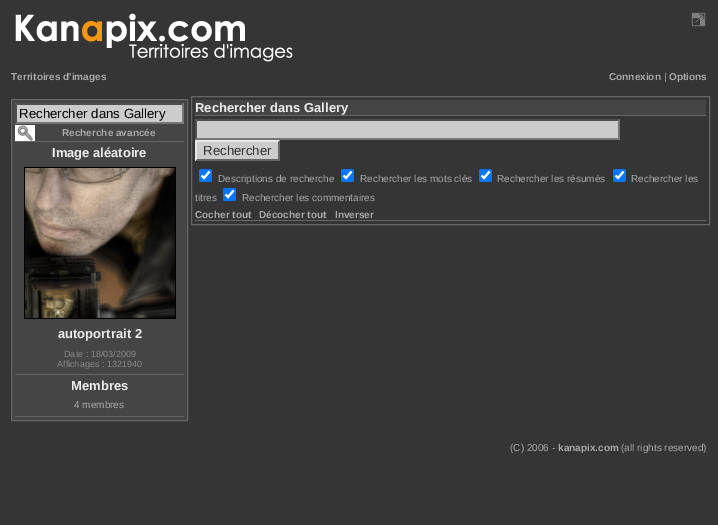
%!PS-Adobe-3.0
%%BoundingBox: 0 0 718 525
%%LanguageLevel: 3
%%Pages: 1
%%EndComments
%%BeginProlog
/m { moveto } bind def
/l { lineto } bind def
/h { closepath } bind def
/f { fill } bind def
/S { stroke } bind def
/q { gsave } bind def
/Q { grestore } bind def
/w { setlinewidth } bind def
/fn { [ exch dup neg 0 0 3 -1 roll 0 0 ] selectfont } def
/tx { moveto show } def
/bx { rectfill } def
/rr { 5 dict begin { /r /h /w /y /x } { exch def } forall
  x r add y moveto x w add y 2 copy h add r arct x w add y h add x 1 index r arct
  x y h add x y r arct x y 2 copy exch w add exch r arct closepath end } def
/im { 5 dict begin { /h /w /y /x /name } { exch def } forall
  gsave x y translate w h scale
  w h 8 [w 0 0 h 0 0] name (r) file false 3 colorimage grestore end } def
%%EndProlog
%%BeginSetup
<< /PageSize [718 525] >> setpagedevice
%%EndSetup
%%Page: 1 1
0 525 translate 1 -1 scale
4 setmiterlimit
0.208 setgray
0 0 718 525 bx
(image0.raw) 15 13 278 49 im
(image1.raw) 691 12 15 15 im
/LiberationSans-Bold 10 fn
0.667 setgray
(Territoires d'images) 11 80 tx
(Connexion) 609 80 tx
/LiberationSans-Regular 10 fn
(|) 664 80 tx
/LiberationSans-Bold 10 fn
(Options) 669 80 tx
0.271 setgray
11.5 99.5 m 187.5 99.5 l 187.5 420.5 l 11.5 420.5 l h q f Q
0.4 setgray
S
15 141 169 1 bx
0.8 setgray
15 103 169 21 bx
0.31 setgray
15 103 m 184 103 l 182 105 l 17 105 l h f
0.463 setgray
184 103 m 184 124 l 182 122 l 182 105 l h f
184 124 m 15 124 l 17 122 l 182 122 l h f
0.31 setgray
15 124 m 15 103 l 17 105 l 17 122 l h f
/LiberationSans-Regular 13.25 fn
0 setgray
(Rechercher dans Gallery) 19 118 tx
(image2.raw) 15 125 20 16 im
/LiberationSans-Bold 10 fn
0.667 setgray
(Recherche avancée) 62 136 tx
0.4 setgray
15 374 169 1 bx
/LiberationSans-Bold 13 fn
0.933 setgray
(Image aléatoire) 52 157 tx
0 setgray
24 167 152 152 bx
(image3.raw) 25 168 150 150 im
0.933 setgray
(autoportrait 2) 58 338 tx
/LiberationSans-Regular 9 fn
0.533 setgray
(Date : 18/03/2009) 64 357 tx
(Affichages : 1321940) 57 367 tx
0.4 setgray
15 416 169 1 bx
/LiberationSans-Bold 13 fn
0.933 setgray
(Membres) 71 390 tx
/LiberationSans-Regular 10 fn
0.667 setgray
(4 membres) 74 408 tx
0.4 setgray
191.5 96.5 518 128 rectstroke
0.271 setgray
195 100 511 15 bx
0.4 setgray
195 115 511 1 bx
/LiberationSans-Bold 13 fn
0.933 setgray
(Rechercher dans Gallery) 195 112 tx
0.4 setgray
195 220 511 1 bx
0.8 setgray
195 119 425 21 bx
0.31 setgray
195 119 m 620 119 l 618 121 l 197 121 l h f
0.463 setgray
620 119 m 620 140 l 618 138 l 618 121 l h f
620 140 m 195 140 l 197 138 l 618 138 l h f
0.31 setgray
195 140 m 195 119 l 197 121 l 197 138 l h f
0.8 setgray
195 140 85 21 bx
0.906 setgray
195 140 m 280 140 l 278 142 l 197 142 l h f
0.4 setgray
280 140 m 280 161 l 278 159 l 278 142 l h f
280 161 m 195 161 l 197 159 l 278 159 l h f
0.906 setgray
195 161 m 195 140 l 197 142 l 197 159 l h f
/LiberationSans-Regular 13.25 fn
0.2 setgray
(Rechercher) 203 155 tx
0 0.459 1 setrgbcolor
199 169 13 13 2 rr f
1 setgray
2.1 w
201.5 175.5 m 204 178 l 209.5 171.5 l S
/LiberationSans-Regular 10 fn
0.667 setgray
(Descriptions de recherche) 218 182 tx
0 0.459 1 setrgbcolor
341 169 13 13 2 rr f
1 setgray
343.5 175.5 m 346 178 l 351.5 171.5 l S
0.667 setgray
(Rechercher les mots clés) 360 182 tx
0 0.459 1 setrgbcolor
479 169 13 13 2 rr f
1 setgray
481.5 175.5 m 484 178 l 489.5 171.5 l S
0.667 setgray
(Rechercher les résumés) 497 182 tx
0 0.459 1 setrgbcolor
613 169 13 13 2 rr f
1 setgray
615.5 175.5 m 618 178 l 623.5 171.5 l S
0.667 setgray
(Rechercher les) 631 182 tx
(titres) 195 201 tx
0 0.459 1 setrgbcolor
223 188 13 13 2 rr f
1 setgray
225.5 194.5 m 228 197 l 233.5 190.5 l S
0.667 setgray
(Rechercher les commentaires) 242 201 tx
/LiberationSans-Bold 10 fn
(Cocher tout) 195 218 tx
(Décocher tout) 259 218 tx
(Inverser) 335 218 tx
/LiberationSans-Regular 10 fn
(\(C\) 2006 -) 510 451 tx
/LiberationSans-Bold 10 fn
(kanapix.com) 558 451 tx
/LiberationSans-Regular 10 fn
(\(all rights reserved\)) 621 451 tx
showpage
%%EOF
